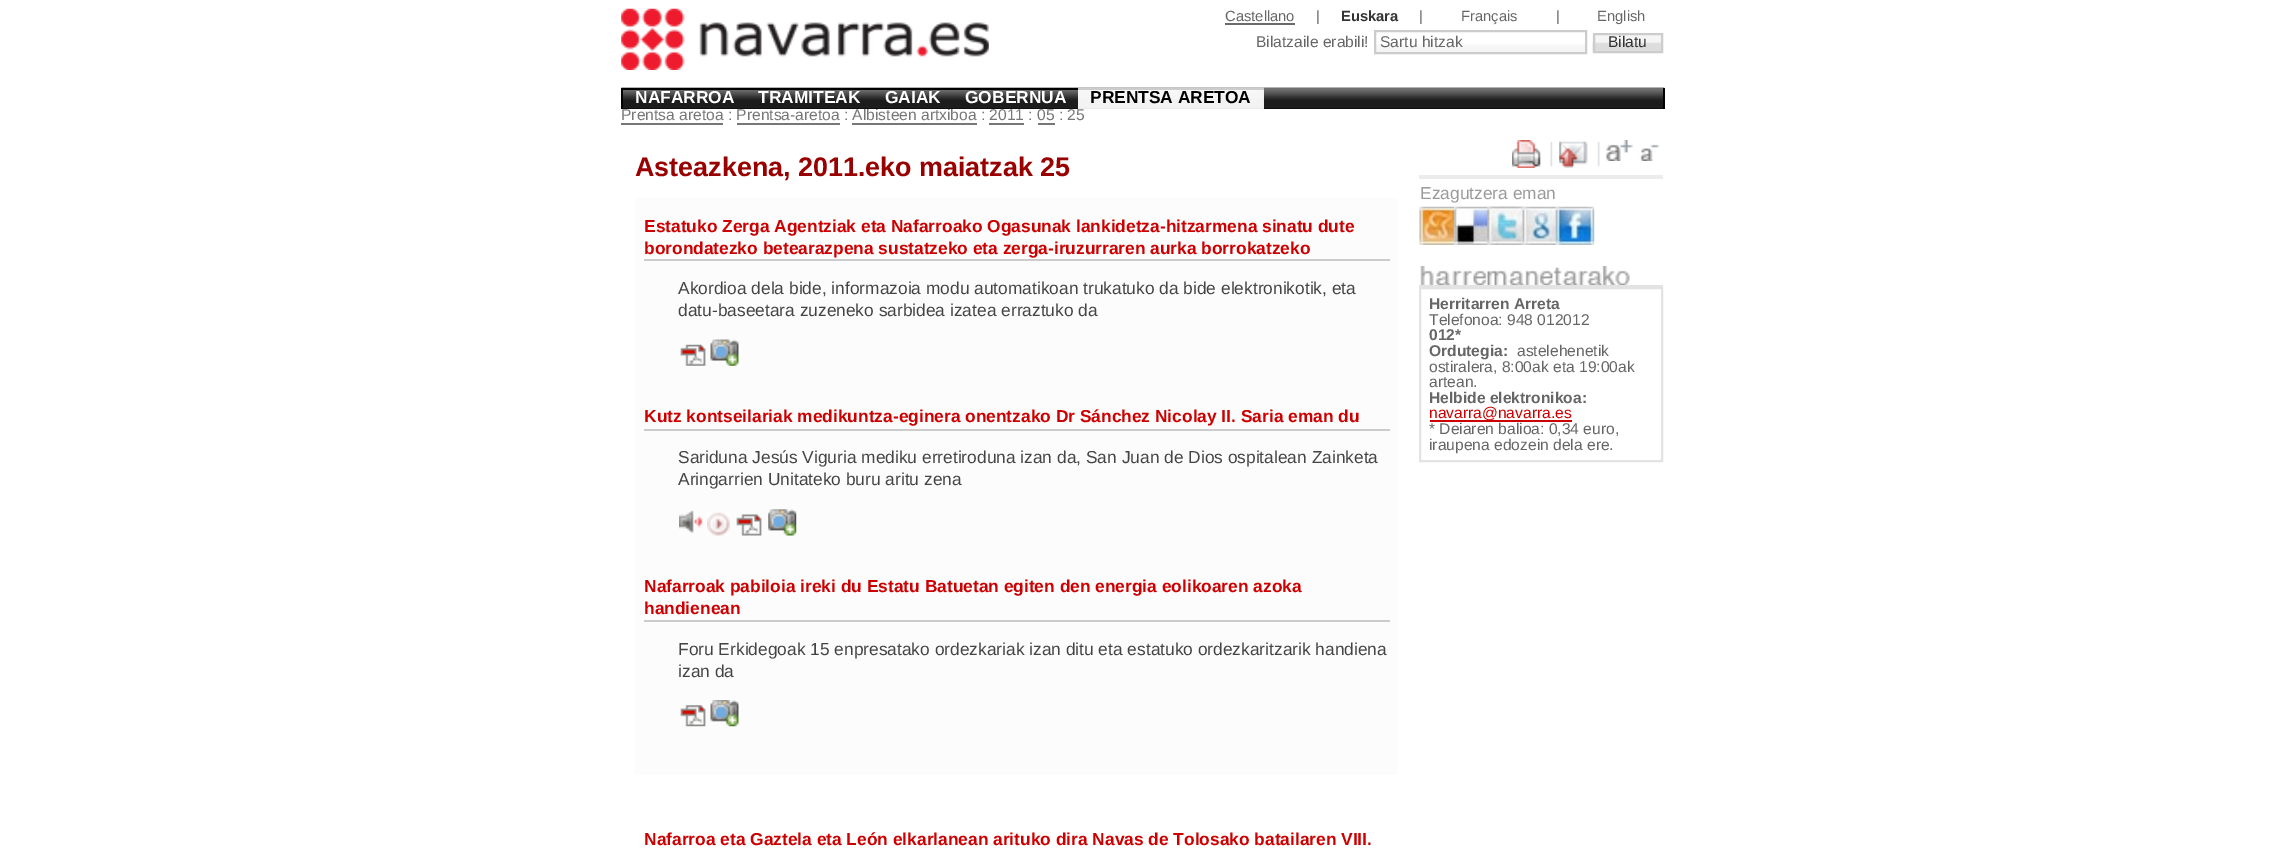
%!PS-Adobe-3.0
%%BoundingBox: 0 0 2283 862
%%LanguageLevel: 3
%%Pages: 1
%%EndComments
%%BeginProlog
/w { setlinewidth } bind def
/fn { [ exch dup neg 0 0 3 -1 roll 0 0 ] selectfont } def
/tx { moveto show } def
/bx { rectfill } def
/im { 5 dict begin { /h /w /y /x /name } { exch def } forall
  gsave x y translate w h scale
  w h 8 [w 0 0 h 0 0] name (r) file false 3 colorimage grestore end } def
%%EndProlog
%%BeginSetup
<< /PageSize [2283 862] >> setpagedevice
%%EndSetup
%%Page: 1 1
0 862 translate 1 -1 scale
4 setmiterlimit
1 setgray
0 0 2283 862 bx
(image0.raw) 621 8 368 62 im
/LiberationSans-Regular 14.75 fn
0.4 setgray
(Castellano) 1225 21 tx
0.416 setgray
1225 23 70 2 bx
0.4 setgray
(|) 1316 21 tx
/LiberationSans-Bold 14.75 fn
0.2 setgray
(Euskara) 1341 21 tx
/LiberationSans-Regular 14.75 fn
0.4 setgray
(|) 1419 21 tx
(Français) 1461 21 tx
(|) 1556 21 tx
(English) 1597 21 tx
/LiberationSans-Regular 15.6 fn
(Bilatzaile erabili!) 1256 47 tx
(image1.raw) 1376 44 209 8 im
0.8 setgray
2 w
1375 31 211 22 rectstroke
0.4 setgray
(Sartu hitzak) 1380 47 tx
(image2.raw) 1592 33 69 20 im
0.8 setgray
1594 34 68 18 rectstroke
0.2 setgray
(Bilatu) 1608 47 tx
0.467 setgray
(Prentsa aretoa : Prentsa-aretoa : Albisteen artxiboa : 2011 : 05 : 25) 621 120 tx
0 setgray
623 108 1040 1 bx
(image3.raw) 621 87 1044 22 im
1663 88 2 21 bx
621 88 457 2 bx
621 88 2 21 bx
/LiberationSans-Bold 17.35 fn
1 setgray
(NAFARROA) 635 103 tx
(TRAMITEAK) 758 103 tx
(GAIAK) 885 103 tx
(GOBERNUA) 965 103 tx
0.925 setgray
1078 90 186 19 bx
(image4.raw) 1078 87 186 21 im
0.8 setgray
1078 88 186 2 bx
0 setgray
(PRENTSA ARETOA) 1090 103 tx
0.467 setgray
621 123 102 2 bx
737 123 103 2 bx
852 123 125 2 bx
989 123 35 2 bx
1038 123 17 2 bx
/LiberationSans-Bold 26.9 fn
0.6 0 0 setrgbcolor
(Asteazkena, 2011.eko maiatzak 25) 635 176 tx
0.988 setgray
635 198 763 577 bx
0.8 setgray
644 259 746 2 bx
/LiberationSans-Bold 17.35 fn
0.8 0 0 setrgbcolor
(Estatuko Zerga Agentziak eta Nafarroako Ogasunak lankidetza-hitzarmena sinatu dute) 644 232 tx
(borondatezko betearazpena sustatzeko eta zerga-iruzurraren aurka borrokatzeko) 644 254 tx
/LiberationSans-Regular 17.35 fn
0.267 setgray
(Akordioa dela bide, informazoia modu automatikoan trukatuko da bide elektronikotik, eta) 678 294 tx
(datu-baseetara zuzeneko sarbidea izatea erraztuko da) 678 316 tx
(image5.raw) 680 344 26 22 im
(image6.raw) 710 339 29 27 im
0.8 setgray
644 429 746 2 bx
/LiberationSans-Bold 17.35 fn
0.8 0 0 setrgbcolor
(Kutz kontseilariak medikuntza-eginera onentzako Dr Sánchez Nicolay II. Saria eman du) 644 422 tx
/LiberationSans-Regular 17.35 fn
0.267 setgray
(Sariduna Jesús Viguria mediku erretiroduna izan da, San Juan de Dios ospitalean Zainketa) 678 463 tx
(Aringarrien Unitateko buru aritu zena) 678 485 tx
(image7.raw) 679 510 24 23 im
(image8.raw) 707 512 23 24 im
(image9.raw) 736 514 26 22 im
(image10.raw) 768 509 29 27 im
0.8 setgray
644 620 746 2 bx
/LiberationSans-Bold 17.35 fn
0.8 0 0 setrgbcolor
(Nafarroak pabiloia ireki du Estatu Batuetan egiten den energia eolikoaren azoka) 644 592 tx
(handienean) 644 614 tx
/LiberationSans-Regular 17.35 fn
0.267 setgray
(Foru Erkidegoak 15 enpresatako ordezkariak izan ditu eta estatuko ordezkaritzarik handiena) 678 655 tx
(izan da) 678 677 tx
(image11.raw) 680 705 26 22 im
(image12.raw) 710 700 29 27 im
/LiberationSans-Bold 17.35 fn
0.8 0 0 setrgbcolor
(Nafarroa eta Gaztela eta León elkarlanean arituko dira Navas de Tolosako batailaren VIII.) 644 845 tx
(image13.raw) 1512 140 41 28 im
(image14.raw) 1559 141 41 27 im
(image15.raw) 1606 140 27 21 im
(image16.raw) 1639 144 20 17 im
0.925 setgray
1419 175 244 4 bx
/LiberationSans-Regular 17.35 fn
0.604 setgray
(Ezagutzera eman) 1420 199 tx
(image17.raw) 1419 206 39 39 im
(image18.raw) 1454 206 39 39 im
(image19.raw) 1487 206 39 39 im
(image20.raw) 1487 206 38 39 im
(image21.raw) 1522 206 39 39 im
(image22.raw) 1555 206 40 39 im
(image23.raw) 1420 266 210 19 im
0.89 setgray
1419 285 244 2 bx
1420 288 242 173 rectstroke
/LiberationSans-Bold 15.6 fn
0.4 setgray
(Herritarren Arreta) 1429 309 tx
/LiberationSans-Regular 15.6 fn
(Telefonoa: 948 012012) 1429 325 tx
/LiberationSans-Bold 15.6 fn
(012*) 1429 340 tx
(Ordutegia:) 1429 356 tx
/LiberationSans-Regular 15.6 fn
(astelehenetik) 1517 356 tx
(ostiralera, 8:00ak eta 19:00ak) 1429 372 tx
(artean.) 1429 387 tx
/LiberationSans-Bold 15.6 fn
(Helbide elektronikoa:) 1429 403 tx
0.8 0 0 setrgbcolor
1430 420 142 2 bx
/LiberationSans-Regular 15.6 fn
(navarra@navarra.es) 1429 418 tx
0.4 setgray
(* Deiaren balioa: 0,34 euro,) 1429 434 tx
(iraupena edozein dela ere.) 1429 450 tx
showpage
%%EOF
